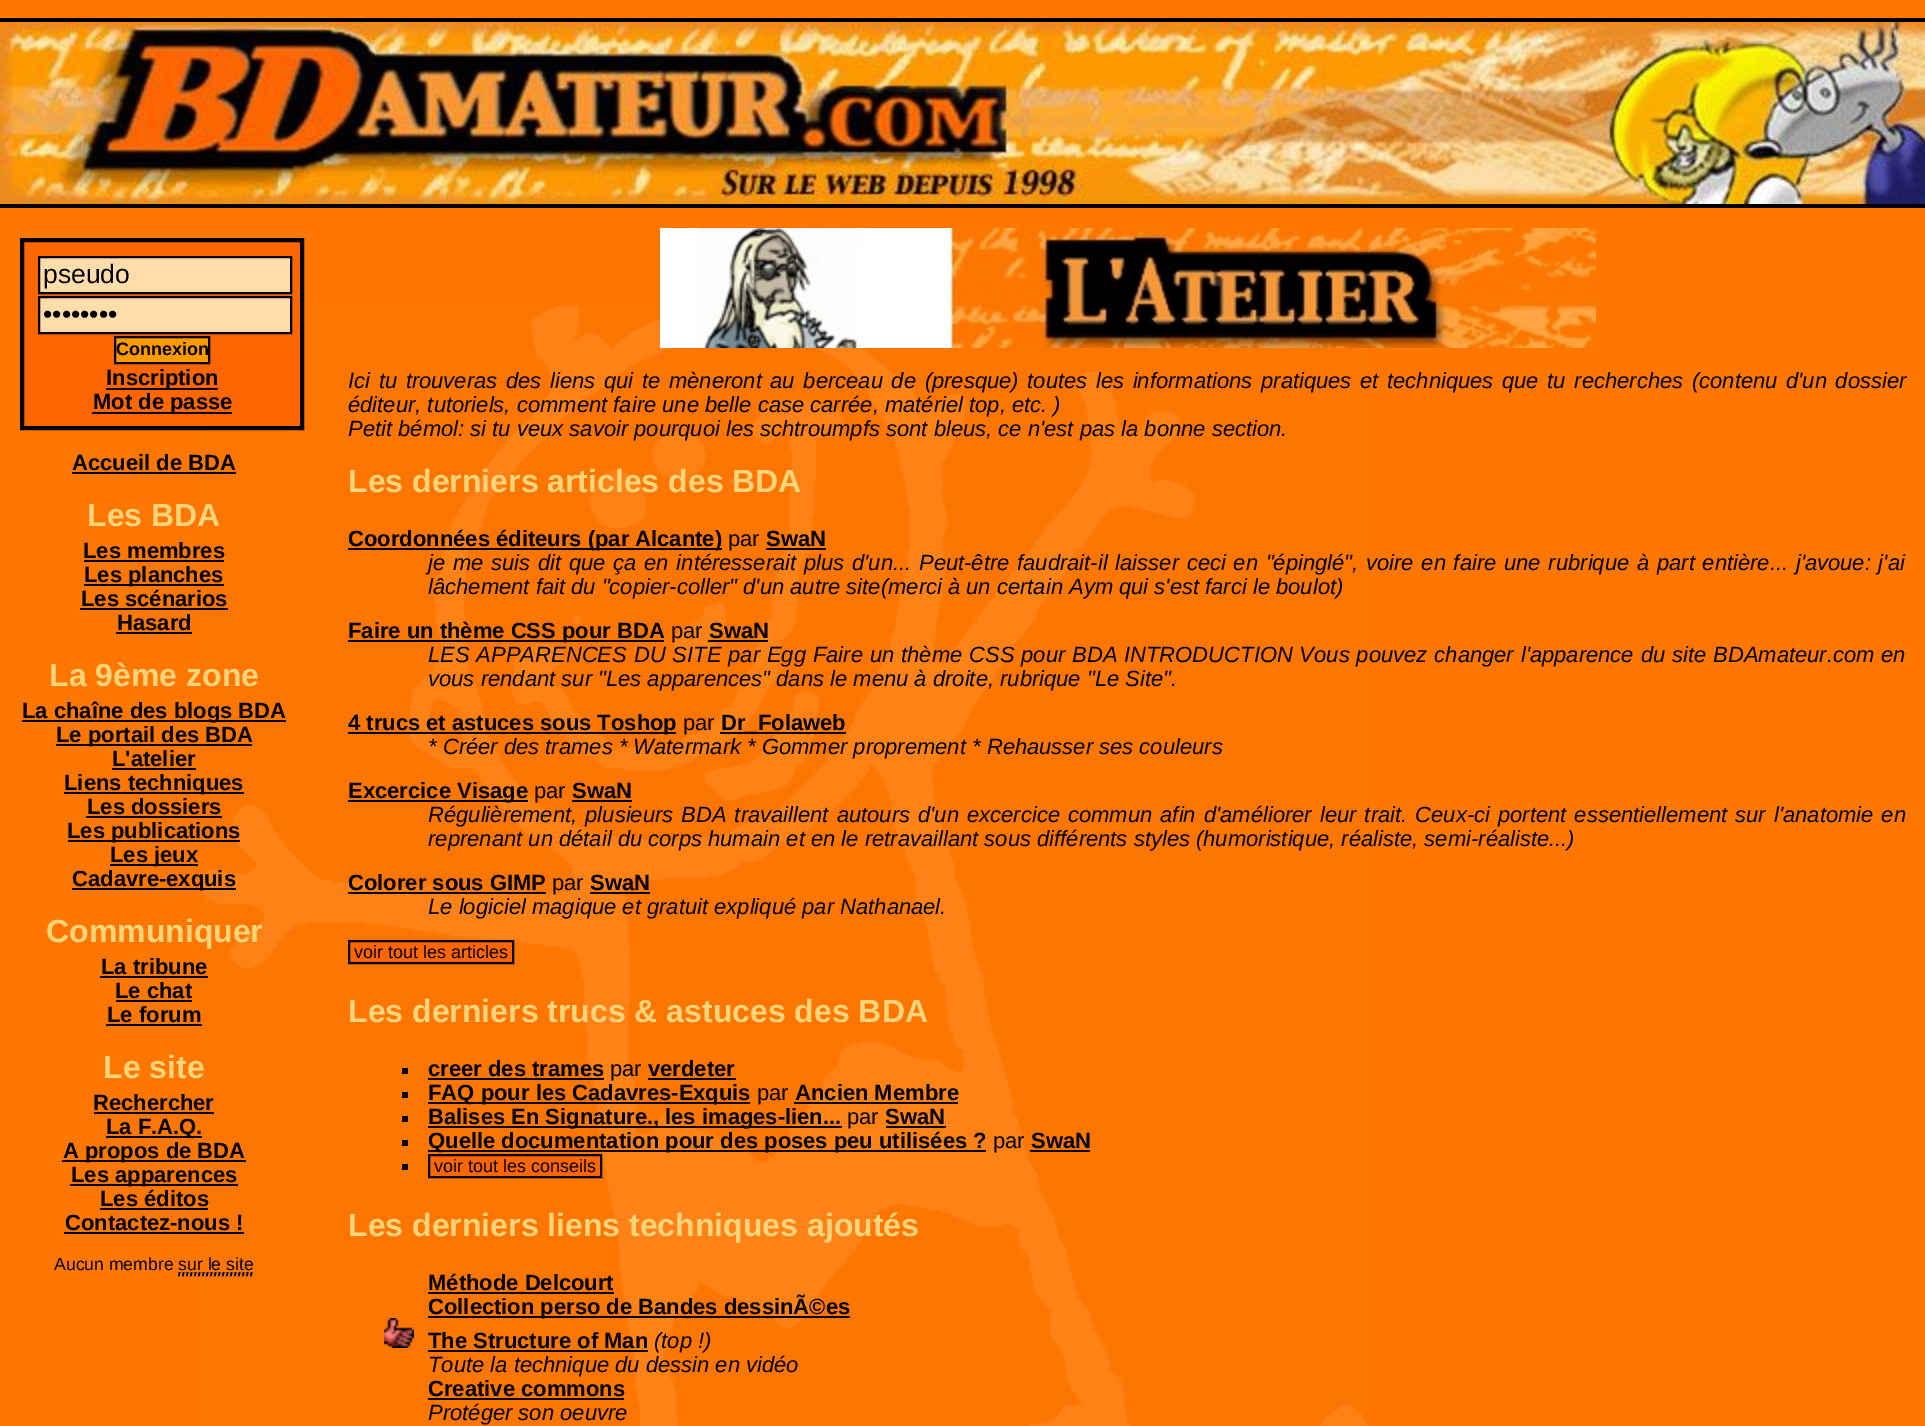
%!PS-Adobe-3.0
%%BoundingBox: 0 0 1925 1426
%%LanguageLevel: 3
%%Pages: 1
%%EndComments
%%BeginProlog
/m { moveto } bind def
/l { lineto } bind def
/h { closepath } bind def
/f { fill } bind def
/S { stroke } bind def
/q { gsave } bind def
/Q { grestore } bind def
/w { setlinewidth } bind def
/fn { [ exch dup neg 0 0 3 -1 roll 0 0 ] selectfont } def
/tx { moveto show } def
/bx { rectfill } def
/im { 5 dict begin { /h /w /y /x /name } { exch def } forall
  gsave x y translate w h scale
  w h 8 [w 0 0 h 0 0] name (r) file false 3 colorimage grestore end } def
%%EndProlog
%%BeginSetup
<< /PageSize [1925 1426] >> setpagedevice
%%EndSetup
%%Page: 1 1
0 1426 translate 1 -1 scale
4 setmiterlimit
1 0.467 0 setrgbcolor
0 0 1925 1426 bx
(image0.raw) 199 299 1170 1127 im
(image1.raw) 0 22 1925 182 im
0 setgray
0 18 1925 4 bx
0 204 1925 4 bx
1 0.4 0 setrgbcolor
22 240 m 302 240 l 302 428 l 22 428 l h q f Q
0 setgray
4 w
S
1 0.867 0.671 setrgbcolor
39 257 m 291 257 l 291 293 l 39 293 l h q f Q
0 setgray
2 w
S
/LiberationSans-Regular 26.5 fn
(pseudo) 43 283 tx
1 0.867 0.671 setrgbcolor
39 297 m 291 297 l 291 333 l 39 333 l h q f Q
0 setgray
S
(••••••••) 43 323 tx
1 0.6 0 setrgbcolor
115 337 m 209 337 l 209 363 l 115 363 l h q f Q
0 setgray
S
/LiberationSans-Bold 18 fn
(Connexion) 116 355 tx
106 388 112 2 bx
/LiberationSans-Bold 22 fn
(Inscription) 106 385 tx
92 412 140 2 bx
(Mot de passe) 93 409 tx
(Accueil de BDA) 72 470 tx
72 472 164 2 bx
/LiberationSans-Bold 32 fn
1 0.835 0.486 setrgbcolor
(Les BDA) 87 526 tx
/LiberationSans-Bold 22 fn
0 setgray
(Les membres) 83 558 tx
84 560 140 2 bx
84 584 140 2 bx
(Les planches) 84 582 tx
(Les scénarios) 81 606 tx
80 608 148 2 bx
(Hasard) 117 630 tx
116 632 76 2 bx
/LiberationSans-Bold 32 fn
1 0.835 0.486 setrgbcolor
(La 9ème zone) 49 686 tx
0 setgray
22 720 264 2 bx
/LiberationSans-Bold 22 fn
(La chaîne des blogs BDA) 22 718 tx
56 744 196 2 bx
(Le portail des BDA) 56 742 tx
(L'atelier) 112 766 tx
112 768 84 2 bx
64 792 180 2 bx
(Liens techniques) 64 790 tx
(Les dossiers) 87 814 tx
86 816 136 2 bx
68 840 172 2 bx
(Les publications) 67 838 tx
110 864 88 2 bx
(Les jeux) 110 862 tx
72 888 164 2 bx
(Cadavre-exquis) 72 886 tx
/LiberationSans-Bold 32 fn
1 0.835 0.486 setrgbcolor
(Communiquer) 46 942 tx
/LiberationSans-Bold 22 fn
0 setgray
(La tribune) 101 974 tx
100 976 108 2 bx
(Le chat) 115 998 tx
116 1000 76 2 bx
(Le forum) 107 1022 tx
106 1024 96 2 bx
/LiberationSans-Bold 32 fn
1 0.835 0.486 setrgbcolor
(Le site) 103 1078 tx
/LiberationSans-Bold 22 fn
0 setgray
(Rechercher) 93 1110 tx
94 1112 120 2 bx
106 1136 96 2 bx
(La F.A.Q.) 106 1134 tx
62 1160 184 2 bx
(A propos de BDA) 63 1158 tx
70 1184 168 2 bx
(Les apparences) 71 1182 tx
(Les éditos) 100 1206 tx
100 1208 108 2 bx
(Contactez-nous !) 65 1230 tx
64 1232 180 2 bx
/LiberationSans-Regular 17.6 fn
(Aucun membre sur le site) 54 1270 tx
[2 2] 0 setdash
178.5 1273 m 254 1273 l S
178 1275 m 254 1275 l S
(image2.raw) 660 228 936 120 im
/LiberationSans-Italic 22 fn
348 388 m 2.5 0 32 (Ici tu trouveras des liens qui te mèneront au berceau de \(presque\) toutes les informations pratiques et techniques que tu recherches \(contenu d'un dossier) widthshow
(éditeur, tutoriels, comment faire une belle case carrée, matériel top, etc. \)) 348 412 tx
(Petit bémol: si tu veux savoir pourquoi les schtroumpfs sont bleus, ce n'est pas la bonne section.) 348 436 tx
/LiberationSans-Bold 32 fn
1 0.835 0.486 setrgbcolor
(Les derniers articles des BDA) 348 492 tx
0 setgray
348 548 374 2 bx
/LiberationSans-Bold 22 fn
(Coordonnées éditeurs \(par Alcante\)) 348 546 tx
/LiberationSans-Regular 22 fn
(par) 728 546 tx
/LiberationSans-Bold 22 fn
(SwaN) 766 546 tx
766 548 60 2 bx
/LiberationSans-Italic 22 fn
428 570 m 1.6 0 32 (je me suis dit que ça en intéresserait plus d'un... Peut-être faudrait-il laisser ceci en "épinglé", voire en faire une rubrique à part entière... j'avoue: j'ai) widthshow
(lâchement fait du "copier-coller" d'un autre site\(merci à un certain Aym qui s'est farci le boulot\)) 428 594 tx
348 640 316 2 bx
/LiberationSans-Bold 22 fn
(Faire un thème CSS pour BDA) 348 638 tx
/LiberationSans-Regular 22 fn
(par) 671 638 tx
/LiberationSans-Bold 22 fn
(SwaN) 709 638 tx
708 640 60 2 bx
/LiberationSans-Italic 22 fn
428 662 m 0.75 0 32 (LES APPARENCES DU SITE par Egg Faire un thème CSS pour BDA) widthshow
1124 662 m 0.75 0 32 (INTRODUCTION Vous pouvez changer l'apparence du site BDAmateur.com en) widthshow
(vous rendant sur "Les apparences" dans le menu à droite, rubrique "Le Site".) 428 686 tx
348 732 328 2 bx
/LiberationSans-Bold 22 fn
(4 trucs et astuces sous Toshop) 348 730 tx
/LiberationSans-Regular 22 fn
(par) 683 730 tx
720 732 126 2 bx
/LiberationSans-Bold 22 fn
(Dr_Folaweb) 721 730 tx
/LiberationSans-Italic 22 fn
(* Créer des trames * Watermark * Gommer proprement * Rehausser ses couleurs) 428 754 tx
348 800 180 2 bx
/LiberationSans-Bold 22 fn
(Excercice Visage) 348 798 tx
/LiberationSans-Regular 22 fn
(par) 534 798 tx
/LiberationSans-Bold 22 fn
(SwaN) 572 798 tx
572 800 60 2 bx
/LiberationSans-Italic 22 fn
428 822 m 1.9 0 32 (Régulièrement, plusieurs BDA travaillent autours d'un excercice commun afin d'améliorer leur trait. Ceux-ci portent essentiellement sur l'anatomie en) widthshow
(reprenant un détail du corps humain et en le retravaillant sous différents styles \(humoristique, réaliste, semi-réaliste...\)) 428 846 tx
/LiberationSans-Bold 22 fn
(Colorer sous GIMP) 348 890 tx
348 892 198 2 bx
/LiberationSans-Regular 22 fn
(par) 552 890 tx
/LiberationSans-Bold 22 fn
(SwaN) 590 890 tx
590 892 60 2 bx
/LiberationSans-Italic 22 fn
(Le logiciel magique et gratuit expliqué par Nathanael.) 428 914 tx
1 0.4 0 setrgbcolor
349 941 m 513 941 l 513 963 l 349 963 l h q f Q
0 setgray
[] 0 setdash
S
/LiberationSans-Regular 18 fn
(voir tout les articles) 354 958 tx
/LiberationSans-Bold 32 fn
1 0.835 0.486 setrgbcolor
(Les derniers trucs & astuces des BDA) 348 1022 tx
0 setgray
402 1068 6 6 bx
/LiberationSans-Bold 22 fn
(creer des trames) 428 1076 tx
428 1078 176 2 bx
/LiberationSans-Regular 22 fn
(par) 610 1076 tx
/LiberationSans-Bold 22 fn
(verdeter) 648 1076 tx
648 1078 88 2 bx
402 1092 6 6 bx
428 1102 322 2 bx
(FAQ pour les Cadavres-Exquis) 428 1100 tx
/LiberationSans-Regular 22 fn
(par) 757 1100 tx
/LiberationSans-Bold 22 fn
(Ancien Membre) 795 1100 tx
794 1102 164 2 bx
402 1116 6 6 bx
428 1126 414 2 bx
(Balises En Signature., les images-lien...) 428 1124 tx
/LiberationSans-Regular 22 fn
(par) 847 1124 tx
/LiberationSans-Bold 22 fn
(SwaN) 885 1124 tx
886 1126 60 2 bx
402 1140 6 6 bx
428 1150 558 2 bx
(Quelle documentation pour des poses peu utilisées ?) 428 1148 tx
/LiberationSans-Regular 22 fn
(par) 993 1148 tx
/LiberationSans-Bold 22 fn
(SwaN) 1031 1148 tx
1030 1150 60 2 bx
402 1164 6 6 bx
1 0.4 0 setrgbcolor
429 1155 m 601 1155 l 601 1177 l 429 1177 l h q f Q
0 setgray
S
/LiberationSans-Regular 18 fn
(voir tout les conseils) 434 1172 tx
/LiberationSans-Bold 32 fn
1 0.835 0.486 setrgbcolor
(Les derniers liens techniques ajoutés) 348 1236 tx
/LiberationSans-Bold 22 fn
0 setgray
(Méthode Delcourt) 428 1290 tx
428 1292 186 2 bx
428 1316 422 2 bx
(Collection perso de Bandes dessinÃ©es) 428 1314 tx
(image3.raw) 384 1318 30 30 im
(The Structure of Man) 428 1348 tx
428 1350 220 2 bx
/LiberationSans-Italic 22 fn
(\(top !\)) 654 1348 tx
(Toute la technique du dessin en vidéo) 428 1372 tx
/LiberationSans-Bold 22 fn
(Creative commons) 428 1396 tx
428 1398 196 2 bx
/LiberationSans-Italic 22 fn
(Protéger son oeuvre) 428 1420 tx
showpage
%%EOF
